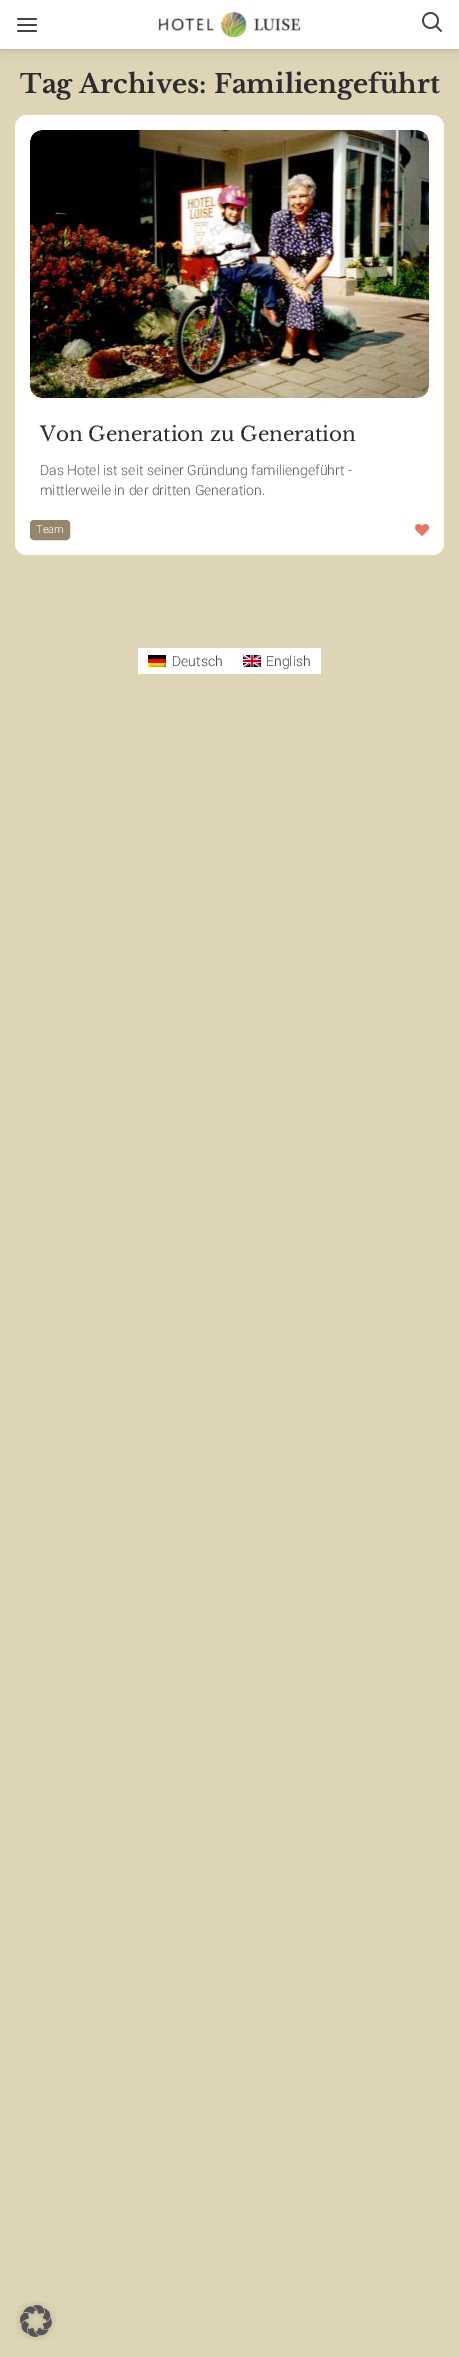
%!PS-Adobe-3.0
%%BoundingBox: 0 0 459 2357
%%LanguageLevel: 3
%%Pages: 1
%%EndComments
%%BeginProlog
/m { moveto } bind def
/l { lineto } bind def
/c { curveto } bind def
/h { closepath } bind def
/f { fill } bind def
/S { stroke } bind def
/q { gsave } bind def
/Q { grestore } bind def
/fn { [ exch dup neg 0 0 3 -1 roll 0 0 ] selectfont } def
/tx { moveto show } def
/bx { rectfill } def
/al { dup .setfillconstantalpha .setstrokeconstantalpha } def
/rr { 5 dict begin { /r /h /w /y /x } { exch def } forall
  x r add y moveto x w add y 2 copy h add r arct x w add y h add x 1 index r arct
  x y h add x y r arct x y 2 copy exch w add exch r arct closepath end } def
/sh { 12 dict begin { /a /b /q /h /w /y /x } { exch def } forall gsave /was 0 def
  9 -2 -9 { dup b mul 4 div /e exch def 1 sub .425 mul 2.718 exch exp 1 add a .99 .min exch div /now exch def
    1 1 now sub 1 was sub div sub al /was now def
    w h .min e 2 mul add 0 gt { x e sub y e sub w e 2 mul add h e 2 mul add
      q e add b .6 mul add w h .min 2 div e add .min 0 .max rr fill } if } for grestore end } def
/im { 5 dict begin { /h /w /y /x /name } { exch def } forall
  gsave x y translate w h scale
  w h 8 [w 0 0 h 0 0] name (r) file false 3 colorimage grestore end } def
%%EndProlog
%%BeginSetup
<< /PageSize [459 2357] /PageUsesTransparency true >> setpagedevice
%%EndSetup
%%Page: 1 1
0 .pushpdf14devicefilter
0 2357 translate 1 -1 scale
4 setmiterlimit
0.867 0.835 0.71 setrgbcolor
0 0 459 2357 bx
0 setgray
0 0 459 49 0 5 0.2 sh
1 setgray
0 0 459 49 bx
(image0.raw) 17 18 20 14 im
(image1.raw) 158 12 143 25 im
(image2.raw) 422 12 20 20 im
/LibreBaskerville-Bold 26 fn
0.173 0.176 0.184 setrgbcolor
(Tag Archives: Familiengeführt) 20 93 tx
1 setgray
15 115 429 440 12 rr f
(image3.raw) 30 130 399 268 im
/LibreBaskerville-Regular 20 fn
0.173 0.176 0.184 setrgbcolor
(Von Generation zu Generation) 40 441 tx
/Roboto-Light 14 fn
0.361 setgray
(Das Hotel ist seit seiner Gründung familiengeführt -) 40 475 tx
(mittlerweile in der dritten Generation.) 40 495 tx
1 setgray
15 505 m 444 505 l 444 543 l 444 549.5 438.5 555 432 555 c 27 555 l 20.5 555 15 549.5 15 543 c h f
0.588 0.529 0.424 setrgbcolor
30.5 520.5 39 19 3.5 rr q f Q
S
/Roboto-Light 11 fn
1 setgray
(Team) 36 533 tx
400 505 m 444 505 l 444 543 l 444 549.5 438.5 555 432 555 c 400 555 l h f
(image4.raw) 415 524 14 12 im
138 648 183 26 bx
(image5.raw) 148 655 18 12 im
/Roboto-Light 14 fn
0.267 setgray
(Deutsch) 172 666 tx
(image6.raw) 243 655 18 12 im
(English) 266 666 tx
(image7.raw) 16 2301 40 40 im
.poppdf14devicefilter showpage
%%EOF
